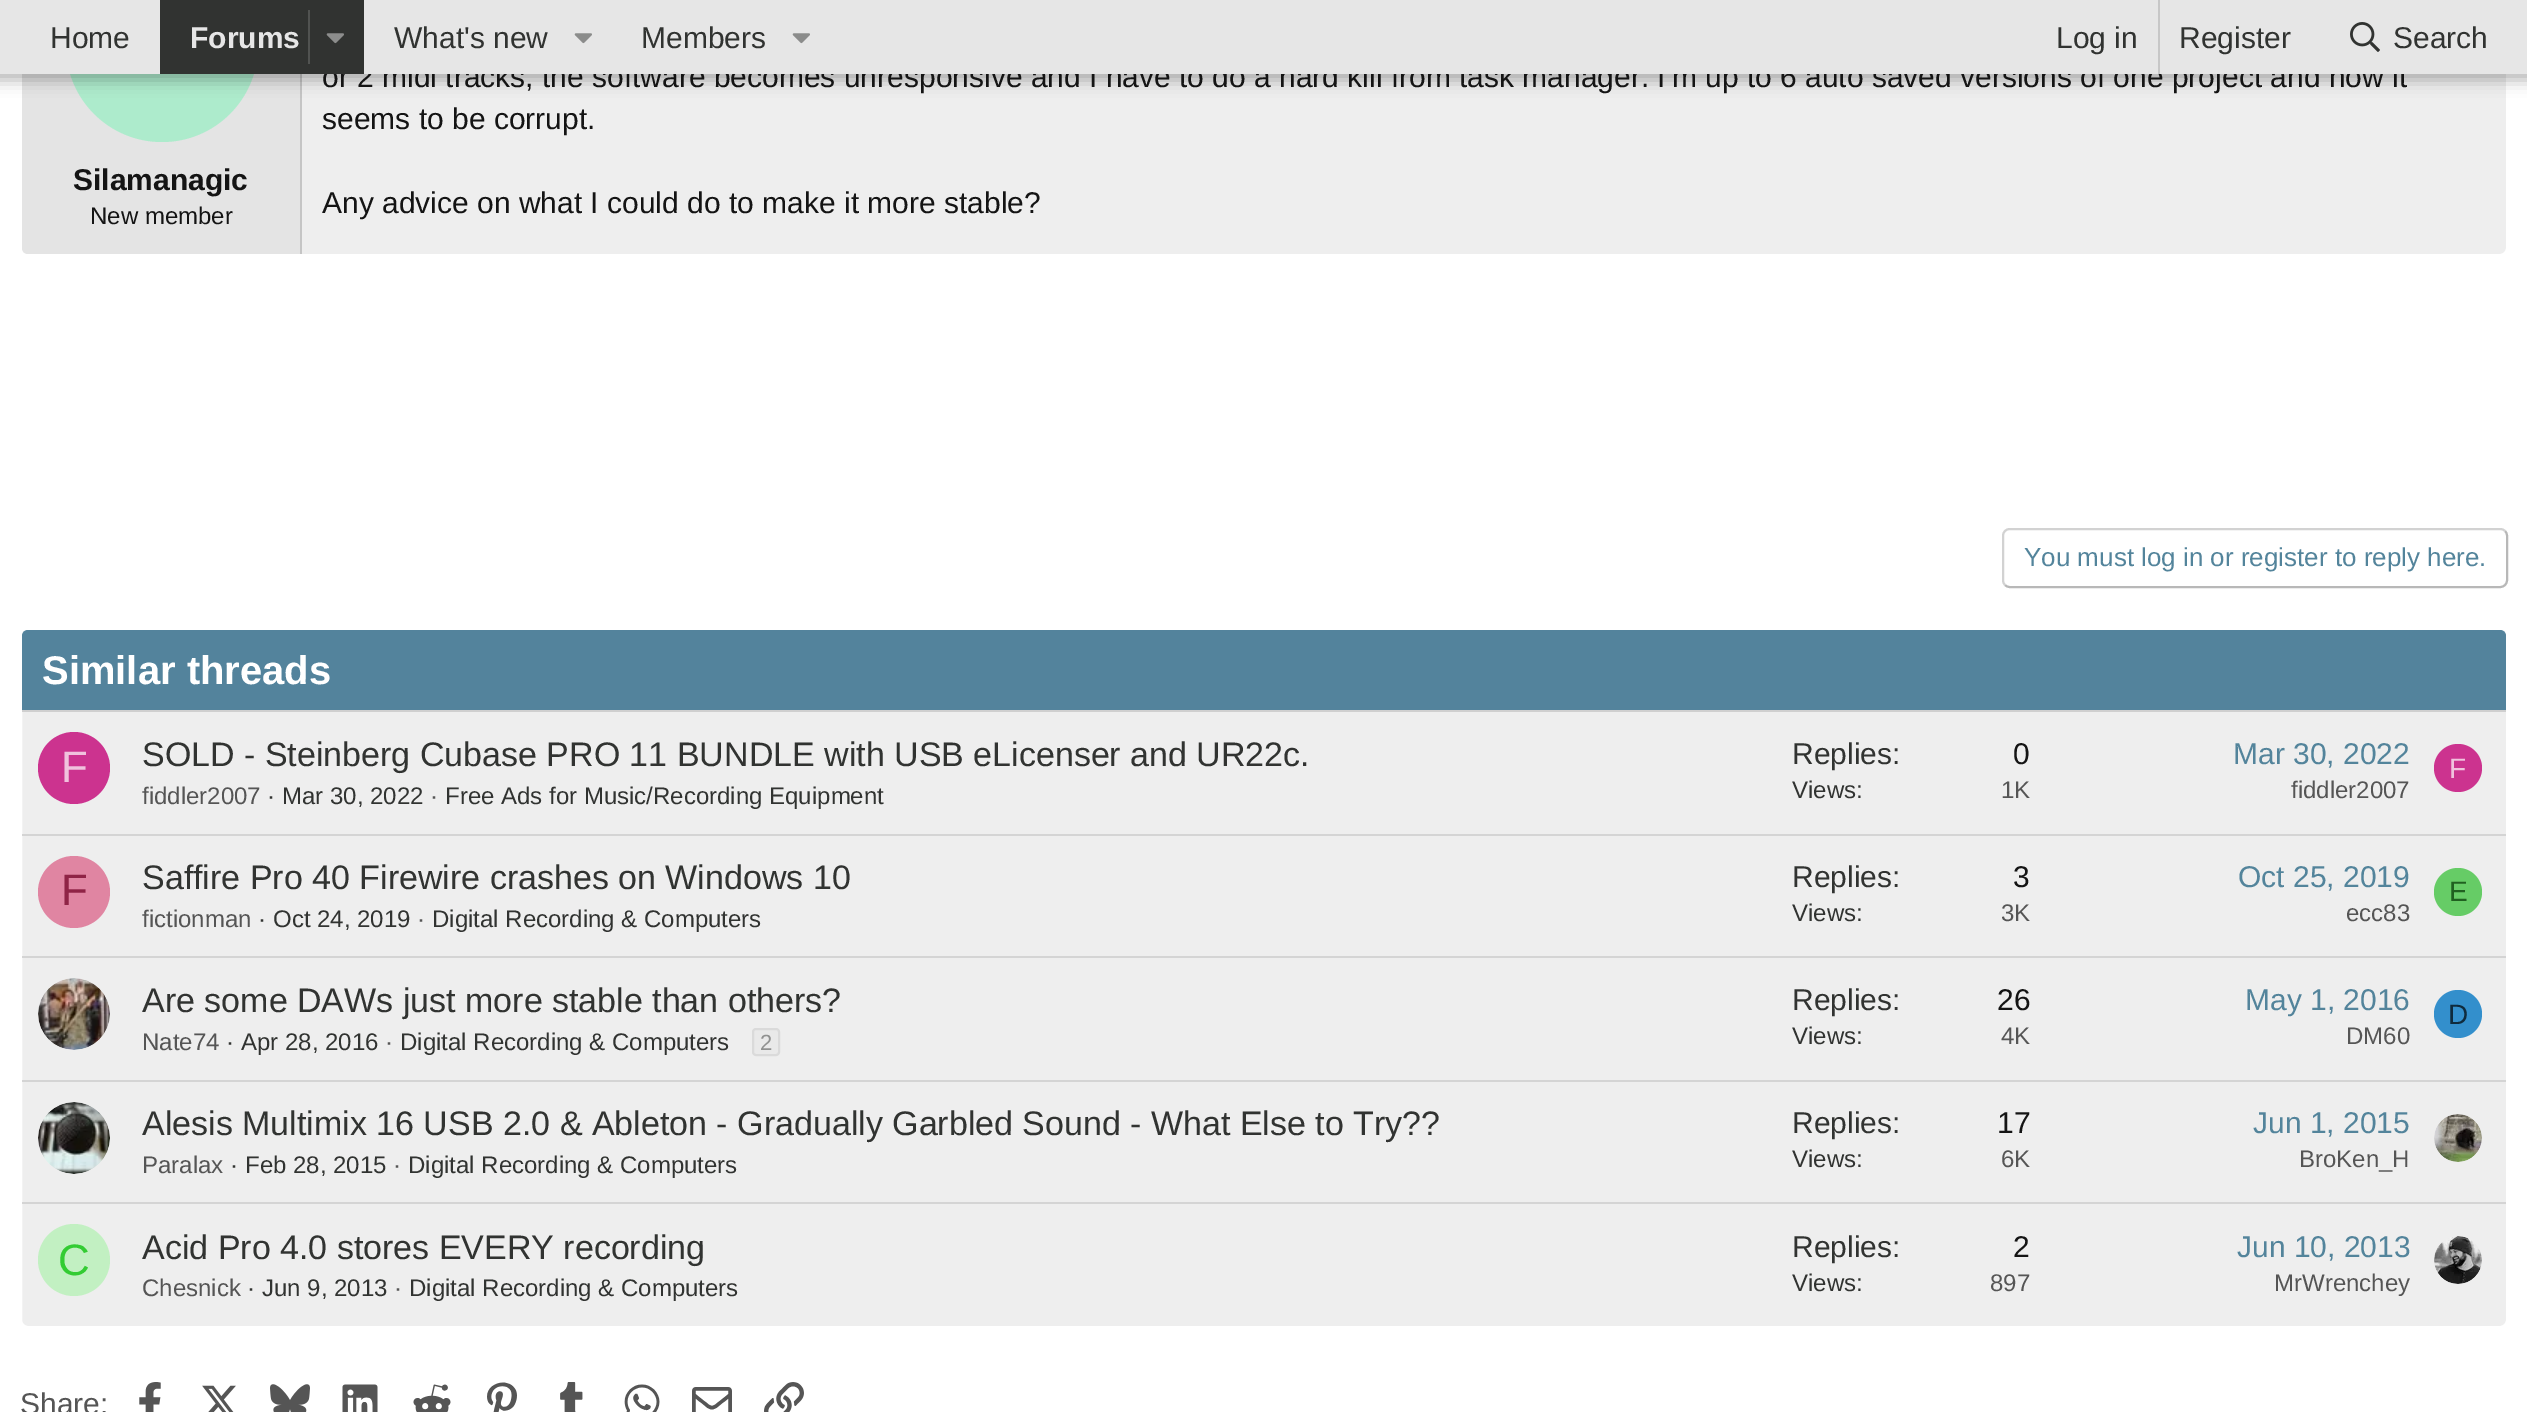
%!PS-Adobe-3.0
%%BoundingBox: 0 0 2527 1412
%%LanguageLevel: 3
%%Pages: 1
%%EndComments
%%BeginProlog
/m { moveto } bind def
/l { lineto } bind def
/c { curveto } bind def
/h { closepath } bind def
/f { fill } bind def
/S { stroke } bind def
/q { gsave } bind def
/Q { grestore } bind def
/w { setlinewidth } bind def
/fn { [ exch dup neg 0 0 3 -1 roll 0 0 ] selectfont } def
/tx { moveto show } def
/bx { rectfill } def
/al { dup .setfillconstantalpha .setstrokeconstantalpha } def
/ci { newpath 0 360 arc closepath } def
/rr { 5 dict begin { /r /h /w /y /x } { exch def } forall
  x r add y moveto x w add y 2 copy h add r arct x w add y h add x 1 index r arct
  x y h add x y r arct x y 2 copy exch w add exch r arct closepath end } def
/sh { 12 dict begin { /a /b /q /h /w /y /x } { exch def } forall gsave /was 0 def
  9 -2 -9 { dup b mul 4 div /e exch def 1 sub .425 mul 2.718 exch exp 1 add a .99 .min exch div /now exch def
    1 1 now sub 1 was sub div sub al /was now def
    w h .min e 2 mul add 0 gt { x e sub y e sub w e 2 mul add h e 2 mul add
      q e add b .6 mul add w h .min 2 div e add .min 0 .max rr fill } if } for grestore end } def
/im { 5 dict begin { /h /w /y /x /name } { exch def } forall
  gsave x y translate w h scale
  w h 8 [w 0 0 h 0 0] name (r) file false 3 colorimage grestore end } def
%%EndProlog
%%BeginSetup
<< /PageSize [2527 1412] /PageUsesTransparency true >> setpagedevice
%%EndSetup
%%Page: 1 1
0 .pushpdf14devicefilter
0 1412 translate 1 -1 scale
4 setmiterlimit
1 setgray
0 0 2527 1412 bx
0.933 setgray
21 -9 2486 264 7 rr q f Q
1 setgray
2 w
S
0.894 setgray
28 -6 m 302 -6 l 302 254 l 28 254 l 24.5 254 22 251.5 22 248 c 22 0 l 22 -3.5 24.5 -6 28 -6 c h f
0.773 setgray
300 74 2 180 bx
0.678 0.922 0.8 setrgbcolor
162 46 96 ci f
0 setgray
-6 -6 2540 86 0 8 0.3 sh
/LiberationSans-Regular 30 fn
0.078 setgray
(or 2 midi tracks, the software becomes unresponsive and I have to do a hard kill from task manager. I'm up to 6 auto saved versions of one project and now it) 322 87 tx
0.902 setgray
0 0 2527 74 bx
0.192 0.2 0.192 setrgbcolor
(Home) 50 48 tx
160 0 204 74 bx
/LiberationSans-Bold 30 fn
0.902 setgray
(Forums) 190 48 tx
0.318 0.325 0.318 setrgbcolor
308 10 2 54 bx
(image0.raw) 326 33 18 11 im
/LiberationSans-Regular 30 fn
0.192 0.2 0.192 setrgbcolor
(What's new) 394 48 tx
(image1.raw) 574 33 18 11 im
(Members) 641 48 tx
(image1.raw) 792 33 18 11 im
(Log in) 2056 48 tx
0.78 setgray
2158 0 2 74 bx
0.192 0.2 0.192 setrgbcolor
(Register) 2179 48 tx
(image2.raw) 2350 22 30 30 im
(Search) 2393 48 tx
/LiberationSans-Bold 30 fn
0.078 setgray
(Silamanagic) 73 190 tx
/LiberationSans-Regular 24 fn
(New member) 90 224 tx
/LiberationSans-Regular 30 fn
(seems to be corrupt.) 322 129 tx
(Any advice on what I could do to make it more stable?) 322 213 tx
0.722 setgray
2505 531 m 2506.5 532.5 2507 534 2507 536 c 2507 580 l 2507 582 2506.5 583.5 2505 585 c 2503.5 586.5 2502 587 2500 587 c 2010 587 l 2008 587 2006.5 586.5 2005 585 c S
0.824 setgray
2005 585 m 2003.5 583.5 2003 582 2003 580 c 2003 536 l 2003 534 2003.5 532.5 2005 531 c 2006.5 529.5 2008 529 2010 529 c 2500 529 l 2502 529 2503.5 529.5 2505 531 c S
/LiberationSans-Regular 26 fn
0.325 0.518 0.608 setrgbcolor
(You must log in or register to reply here.) 2024 566 tx
0.933 setgray
21 629 2486 698 7 rr q f Q
1 setgray
S
0.325 0.514 0.612 setrgbcolor
28 630 m 2500 630 l 2503.5 630 2506 632.5 2506 636 c 2506 712 l 22 712 l 22 636 l 22 632.5 24.5 630 28 630 c h f
0.812 setgray
22 710 2484 2 bx
/LiberationSans-Bold 40 fn
1 setgray
(Similar threads) 42 684 tx
0.8 0.2 0.561 setrgbcolor
74 768 36 ci f
/LiberationSans-Regular 44 fn
0.941 0.761 0.867 setrgbcolor
(F) 61 782 tx
/LiberationSans-Regular 34 fn
0.192 0.2 0.192 setrgbcolor
(SOLD - Steinberg Cubase PRO 11 BUNDLE with USB eLicenser and UR22c.) 142 766 tx
/LiberationSans-Regular 24 fn
0.333 setgray
(fiddler2007) 142 804 tx
0.192 0.2 0.192 setrgbcolor
(·) 267 804 tx
(Mar 30, 2022) 282 804 tx
0.333 setgray
(·) 430 804 tx
0.192 0.2 0.192 setrgbcolor
(Free Ads for Music/Recording Equipment) 445 804 tx
/LiberationSans-Regular 30 fn
(Replies:) 1792 764 tx
0.078 setgray
(0) 2013 764 tx
/LiberationSans-Regular 24 fn
0.192 0.2 0.192 setrgbcolor
(Views:) 1792 798 tx
0.333 setgray
(1K) 2001 798 tx
/LiberationSans-Regular 30 fn
0.325 0.518 0.608 setrgbcolor
(Mar 30, 2022) 2233 764 tx
/LiberationSans-Regular 24 fn
0.333 setgray
(fiddler2007) 2291 798 tx
0.8 0.2 0.561 setrgbcolor
2458 768 24 ci f
/LiberationSans-Regular 28 fn
0.941 0.761 0.867 setrgbcolor
(F) 2449 778 tx
0.831 setgray
22 834 2484 2 bx
0.878 0.522 0.635 setrgbcolor
74 892 36 ci f
/LiberationSans-Regular 44 fn
0.561 0.141 0.275 setrgbcolor
(F) 61 905 tx
/LiberationSans-Regular 34 fn
0.192 0.2 0.192 setrgbcolor
(Saffire Pro 40 Firewire crashes on Windows 10) 142 889 tx
/LiberationSans-Regular 24 fn
0.333 setgray
(fictionman) 142 927 tx
0.192 0.2 0.192 setrgbcolor
(·) 258 927 tx
(Oct 24, 2019) 273 927 tx
0.333 setgray
(·) 417 927 tx
0.192 0.2 0.192 setrgbcolor
(Digital Recording & Computers) 432 927 tx
/LiberationSans-Regular 30 fn
(Replies:) 1792 887 tx
0.078 setgray
(3) 2013 887 tx
/LiberationSans-Regular 24 fn
0.192 0.2 0.192 setrgbcolor
(Views:) 1792 921 tx
0.333 setgray
(3K) 2001 921 tx
/LiberationSans-Regular 30 fn
0.325 0.518 0.608 setrgbcolor
(Oct 25, 2019) 2238 887 tx
/LiberationSans-Regular 24 fn
0.333 setgray
(ecc83) 2346 921 tx
0.4 0.8 0.4 setrgbcolor
2458 892 24 ci f
/LiberationSans-Regular 28 fn
0.125 0.376 0.125 setrgbcolor
(E) 2449 901 tx
0.831 setgray
22 956 2484 2 bx
(image3.raw) 38 978 72 72 im
/LiberationSans-Regular 34 fn
0.192 0.2 0.192 setrgbcolor
(Are some DAWs just more stable than others?) 142 1012 tx
/LiberationSans-Regular 24 fn
0.333 setgray
(Nate74) 142 1050 tx
0.192 0.2 0.192 setrgbcolor
(·) 226 1050 tx
(Apr 28, 2016) 241 1050 tx
0.333 setgray
(·) 385 1050 tx
0.192 0.2 0.192 setrgbcolor
(Digital Recording & Computers) 400 1050 tx
0.914 setgray
753 1029 26 26 3 rr q f Q
0.855 setgray
S
/LiberationSans-Regular 22 fn
0.565 0.569 0.565 setrgbcolor
(2) 760 1050 tx
/LiberationSans-Regular 30 fn
0.192 0.2 0.192 setrgbcolor
(Replies:) 1792 1010 tx
0.078 setgray
(26) 1997 1010 tx
/LiberationSans-Regular 24 fn
0.192 0.2 0.192 setrgbcolor
(Views:) 1792 1044 tx
0.333 setgray
(4K) 2001 1044 tx
/LiberationSans-Regular 30 fn
0.325 0.518 0.608 setrgbcolor
(May 1, 2016) 2245 1010 tx
/LiberationSans-Regular 24 fn
0.333 setgray
(DM60) 2346 1044 tx
0.2 0.561 0.8 setrgbcolor
2458 1014 24 ci f
/LiberationSans-Regular 28 fn
0.059 0.169 0.239 setrgbcolor
(D) 2448 1024 tx
0.831 setgray
22 1080 2484 2 bx
(image4.raw) 38 1102 72 72 im
/LiberationSans-Regular 34 fn
0.192 0.2 0.192 setrgbcolor
(Alesis Multimix 16 USB 2.0 & Ableton - Gradually Garbled Sound - What Else to Try??) 142 1135 tx
/LiberationSans-Regular 24 fn
0.333 setgray
(Paralax) 142 1173 tx
0.192 0.2 0.192 setrgbcolor
(·) 230 1173 tx
(Feb 28, 2015) 245 1173 tx
0.333 setgray
(·) 393 1173 tx
0.192 0.2 0.192 setrgbcolor
(Digital Recording & Computers) 408 1173 tx
/LiberationSans-Regular 30 fn
(Replies:) 1792 1133 tx
0.078 setgray
(17) 1997 1133 tx
/LiberationSans-Regular 24 fn
0.192 0.2 0.192 setrgbcolor
(Views:) 1792 1167 tx
0.333 setgray
(6K) 2001 1167 tx
/LiberationSans-Regular 30 fn
0.325 0.518 0.608 setrgbcolor
(Jun 1, 2015) 2253 1133 tx
/LiberationSans-Regular 24 fn
0.333 setgray
(BroKen_H) 2299 1167 tx
(image5.raw) 2434 1114 48 48 im
0.831 setgray
22 1202 2484 2 bx
0.761 0.941 0.761 setrgbcolor
74 1260 36 ci f
/LiberationSans-Regular 44 fn
0.2 0.8 0.2 setrgbcolor
(C) 58 1275 tx
/LiberationSans-Regular 34 fn
0.192 0.2 0.192 setrgbcolor
(Acid Pro 4.0 stores EVERY recording) 142 1259 tx
/LiberationSans-Regular 24 fn
0.333 setgray
(Chesnick) 142 1296 tx
0.192 0.2 0.192 setrgbcolor
(·) 247 1296 tx
(Jun 9, 2013) 262 1296 tx
0.333 setgray
(·) 394 1296 tx
0.192 0.2 0.192 setrgbcolor
(Digital Recording & Computers) 409 1296 tx
/LiberationSans-Regular 30 fn
(Replies:) 1792 1257 tx
0.078 setgray
(2) 2013 1257 tx
/LiberationSans-Regular 24 fn
0.192 0.2 0.192 setrgbcolor
(Views:) 1792 1291 tx
0.333 setgray
(897) 1990 1291 tx
/LiberationSans-Regular 30 fn
0.325 0.518 0.608 setrgbcolor
(Jun 10, 2013) 2237 1257 tx
/LiberationSans-Regular 24 fn
0.333 setgray
(MrWrenchey) 2274 1291 tx
(image6.raw) 2434 1236 48 48 im
/LiberationSans-Regular 30 fn
(Share:) 20 1414 tx
(image7.raw) 139 1382 22 30 im
(image8.raw) 202 1385 34 27 im
(image9.raw) 270 1384 40 28 im
(image10.raw) 342 1384 36 28 im
(image11.raw) 413 1384 38 28 im
(image12.raw) 487 1382 30 30 im
(image13.raw) 560 1382 23 30 im
(image14.raw) 624 1384 36 28 im
(image15.raw) 692 1387 40 25 im
(image16.raw) 764 1382 40 30 im
.poppdf14devicefilter showpage
%%EOF
